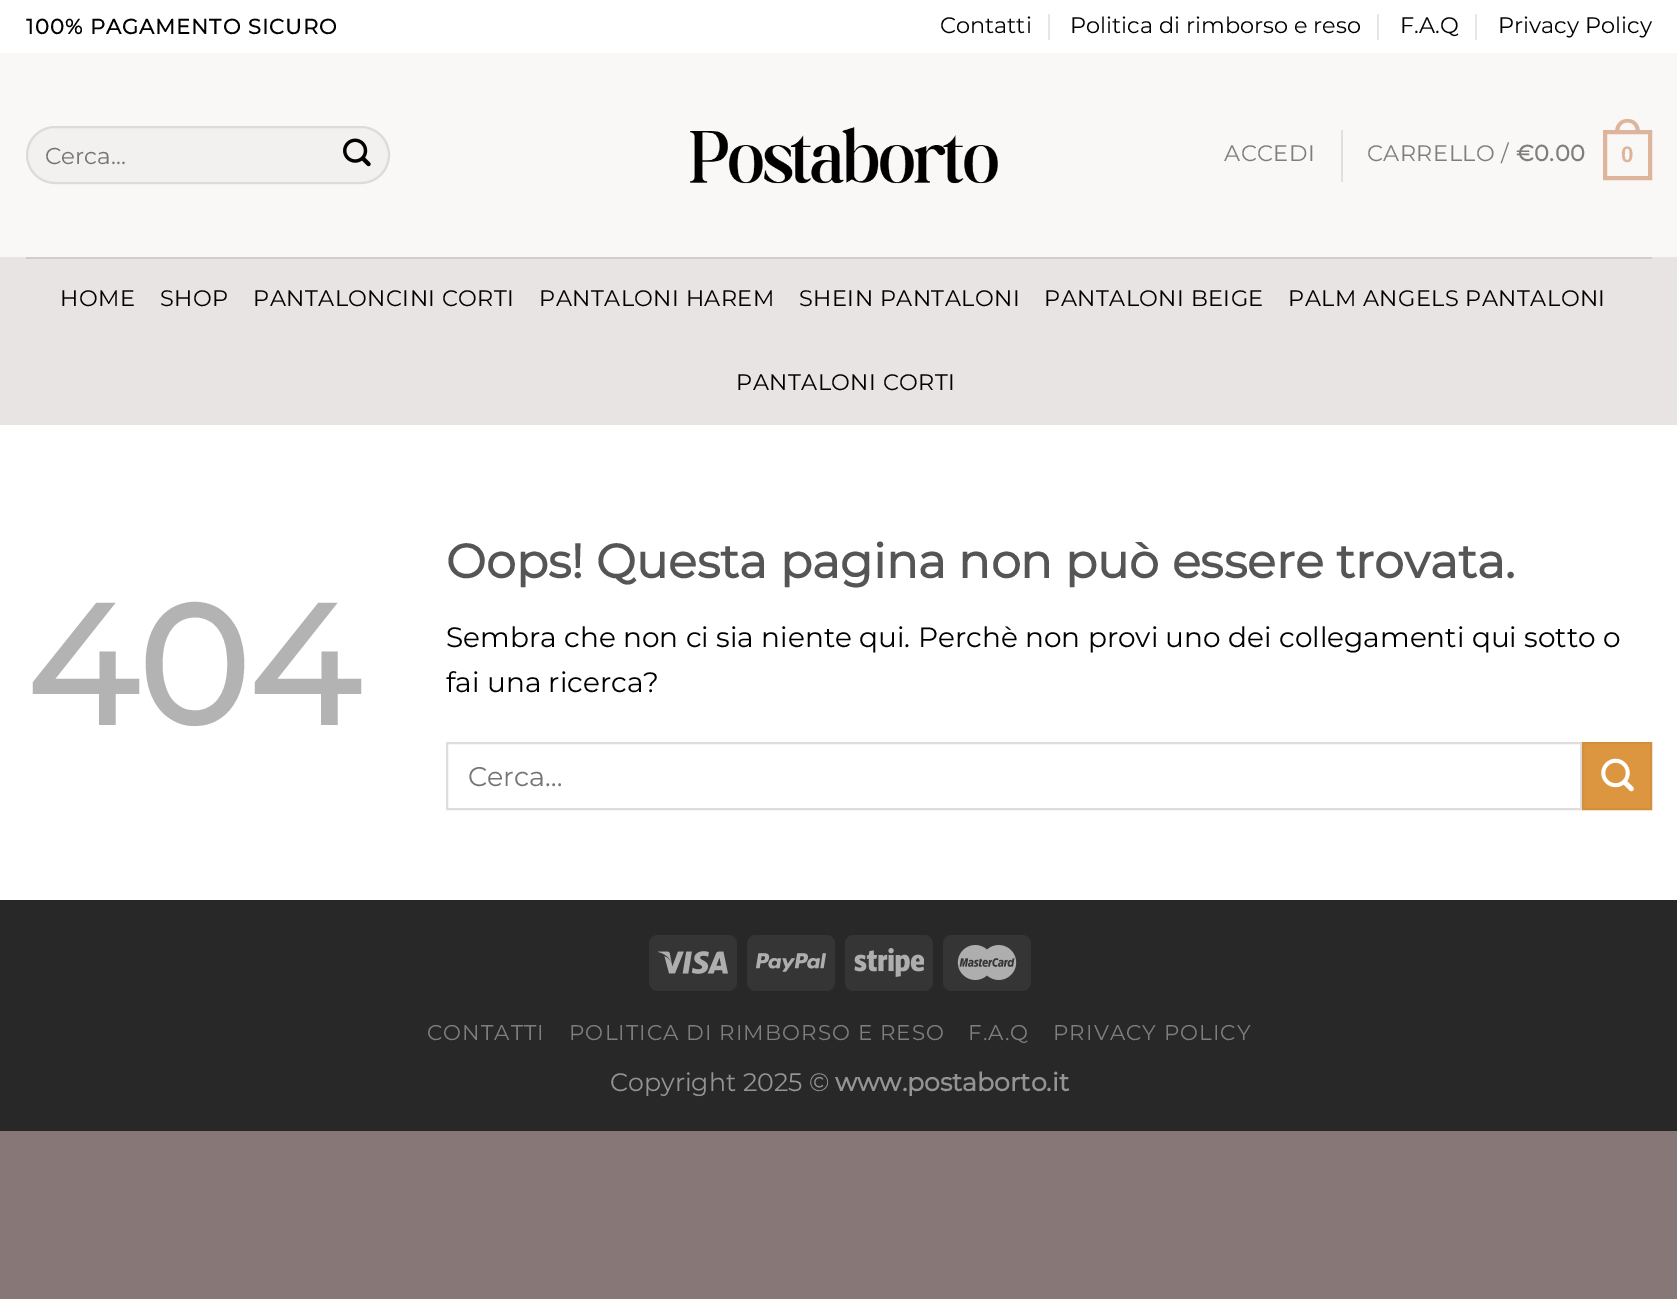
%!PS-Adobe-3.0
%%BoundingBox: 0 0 1677 1299
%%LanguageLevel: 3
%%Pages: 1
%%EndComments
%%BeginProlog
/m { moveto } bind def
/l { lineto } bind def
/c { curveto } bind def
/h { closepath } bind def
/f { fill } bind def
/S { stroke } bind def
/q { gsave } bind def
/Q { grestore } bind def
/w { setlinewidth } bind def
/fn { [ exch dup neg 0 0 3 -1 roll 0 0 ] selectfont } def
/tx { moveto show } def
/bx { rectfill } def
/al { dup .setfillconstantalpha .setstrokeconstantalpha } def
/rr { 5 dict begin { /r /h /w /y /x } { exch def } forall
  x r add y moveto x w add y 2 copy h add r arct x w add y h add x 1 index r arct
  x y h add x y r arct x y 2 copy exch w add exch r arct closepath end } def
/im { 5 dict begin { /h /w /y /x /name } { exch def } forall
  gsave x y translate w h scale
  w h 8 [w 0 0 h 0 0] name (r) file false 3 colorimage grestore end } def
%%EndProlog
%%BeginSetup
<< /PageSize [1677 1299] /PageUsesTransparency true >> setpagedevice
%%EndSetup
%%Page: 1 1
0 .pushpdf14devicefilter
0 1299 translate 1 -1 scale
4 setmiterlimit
0.529 0.467 0.467 setrgbcolor
0 0 1677 1299 bx
1 setgray
0 425 1677 475 bx
0 0 1677 53 bx
/Montserrat-Bold 21 fn
0 setgray
26 34 m 1.05 0 (100% PAGAMENTO SICURO) ashow
/Montserrat-Regular 22.4 fn
(Contatti) 940 33 tx
0.902 setgray
1048 14 2 26 bx
0 setgray
(Politica di rimborso e reso) 1070 33 tx
0.902 setgray
1377 14 2 26 bx
0 setgray
(F.A.Q) 1400 33 tx
0.902 setgray
1475 14 2 26 bx
0 setgray
(Privacy Policy) 1498 33 tx
0.98 0.973 0.965 setrgbcolor
0 53 1677 204 bx
0.953 0.945 0.937 setrgbcolor
26 126 364 58 29 rr f
0.09 al
0 setgray
2 w
27 127 362 56 28 rr S
/Montserrat-Regular 23 fn
1 al
0.459 setgray
(Cerca…) 45 164 tx
(image0.raw) 343 138 28 29 im
(image1.raw) 690 127 308 57 im
/Montserrat-Regular 22.4 fn
0.494 setgray
1224 161 m 0.45 0 (ACCEDI) ashow
0.882 0.875 0.867 setrgbcolor
1341 130 2 52 bx
0.494 setgray
1367 161 m 0.45 0 (CARRELLO /) ashow
/Montserrat-Bold 22.4 fn
1516 161 m 0.45 0 (€0.00) ashow
0.867 0.706 0.612 setrgbcolor
4 w
1605 132 45 46 rectstroke
1627.5 119 m 1636 119 1640 125.5 1640 133 c 1615 133 l 1615 125.5 1619 119 1627.5 119 c h 1627.5 122.5 m 1634 122.5 1636 127.5 1636 133 c 1619 133 l 1619 127.5 1621 122.5 1627.5 122.5 c h eofill
/LiberationSans-Bold 22.4 fn
1621 162 m 0.45 0 (0) ashow
0.91 0.894 0.89 setrgbcolor
0 257 1677 168 bx
0.82 0.804 0.8 setrgbcolor
26 257 1626 2 bx
/Montserrat-Regular 22.4 fn
0 setgray
60 306 m 0.45 0 (HOME) ashow
160 306 m 0.45 0 (SHOP) ashow
253 306 m 0.45 0 (PANTALONCINI CORTI) ashow
539 306 m 0.45 0 (PANTALONI HAREM) ashow
799 306 m 0.45 0 (SHEIN PANTALONI) ashow
1044 306 m 0.45 0 (PANTALONI BEIGE) ashow
1288 306 m 0.45 0 (PALM ANGELS PANTALONI) ashow
736 390 m 0.45 0 (PANTALONI CORTI) ashow
/Montserrat-Bold 168 fn
0.702 setgray
(404) 26 725 tx
/Montserrat-Bold 47.6 fn
0.333 setgray
(Oops! Questa pagina non può essere trovata.) 446 578 tx
/Montserrat-Regular 28 fn
0 setgray
(Sembra che non ci sia niente qui. Perchè non provi uno dei collegamenti qui sotto o) 446 647 tx
(fai una ricerca?) 446 692 tx
0.867 setgray
2 w
447 743 1134 66 rectstroke
/Montserrat-Regular 27 fn
0.459 setgray
(Cerca…) 468 786 tx
0.867 0.588 0.251 setrgbcolor
1583 743 m 1651 743 l 1651 809 l 1583 809 l h q f Q
0.824 0.561 0.239 setrgbcolor
S
(image2.raw) 1601 758 33 34 im
0.157 setgray
0 900 1677 231 bx
0.208 setgray
649 935 88 56 9 rr f
(image3.raw) 658 951 70 23 im
747 935 88 56 9 rr f
(image4.raw) 756 953 70 19 im
845 935 88 56 9 rr f
(image5.raw) 854 948 70 29 im
943 935 88 56 9 rr f
(image6.raw) 957 945 60 35 im
/Montserrat-Regular 21.4 fn
0.494 setgray
427 1040 m 1.1 0 (CONTATTI) ashow
569 1040 m 1.1 0 (POLITICA DI RIMBORSO E RESO) ashow
968 1040 m 1.1 0 (F.A.Q) ashow
1053 1040 m 1.1 0 (PRIVACY POLICY) ashow
/Montserrat-Regular 25.25 fn
0.58 setgray
(Copyright 2025 ©) 610 1091 tx
/Montserrat-Bold 25.25 fn
(www.postaborto.it) 835 1091 tx
.poppdf14devicefilter showpage
%%EOF
